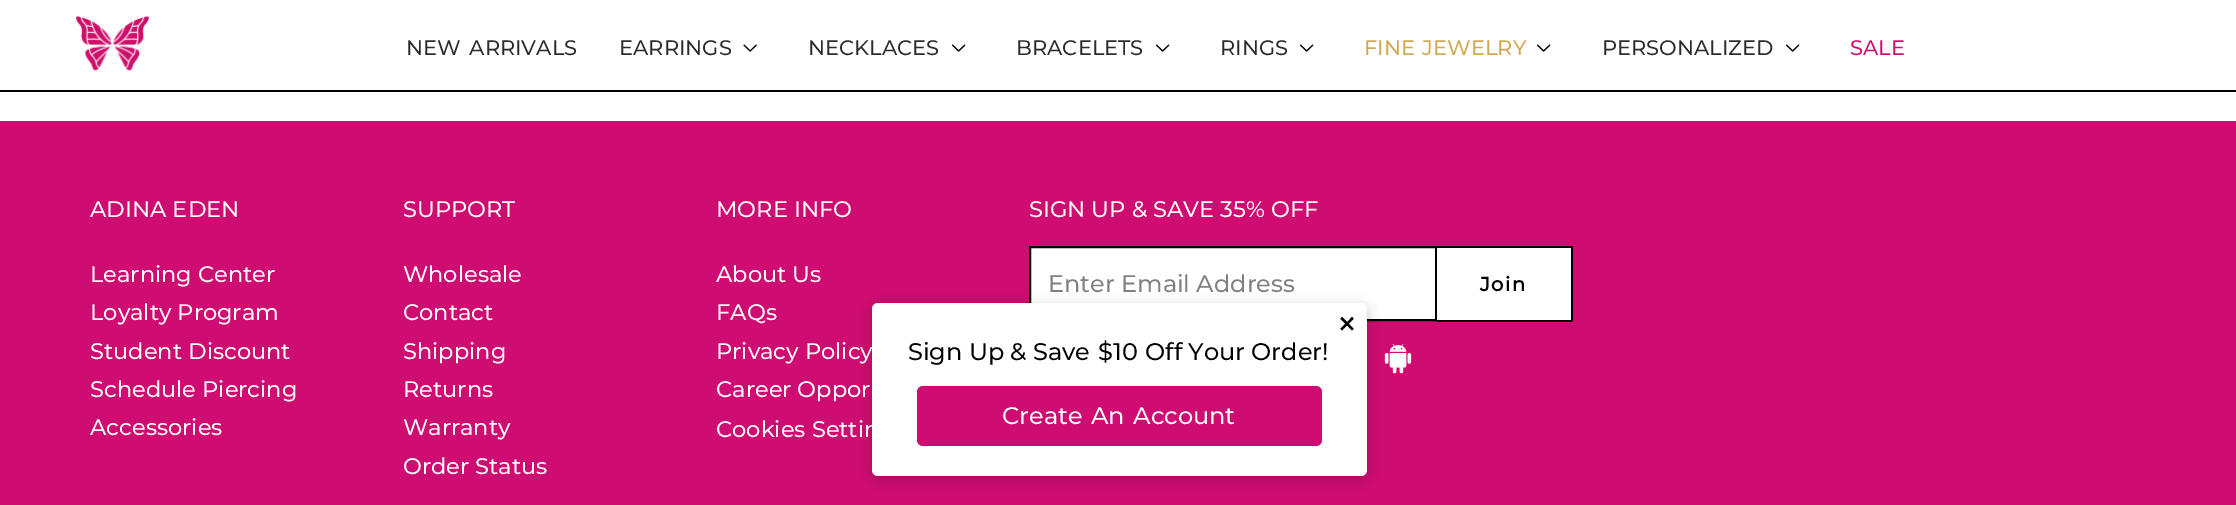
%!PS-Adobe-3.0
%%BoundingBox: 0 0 2236 505
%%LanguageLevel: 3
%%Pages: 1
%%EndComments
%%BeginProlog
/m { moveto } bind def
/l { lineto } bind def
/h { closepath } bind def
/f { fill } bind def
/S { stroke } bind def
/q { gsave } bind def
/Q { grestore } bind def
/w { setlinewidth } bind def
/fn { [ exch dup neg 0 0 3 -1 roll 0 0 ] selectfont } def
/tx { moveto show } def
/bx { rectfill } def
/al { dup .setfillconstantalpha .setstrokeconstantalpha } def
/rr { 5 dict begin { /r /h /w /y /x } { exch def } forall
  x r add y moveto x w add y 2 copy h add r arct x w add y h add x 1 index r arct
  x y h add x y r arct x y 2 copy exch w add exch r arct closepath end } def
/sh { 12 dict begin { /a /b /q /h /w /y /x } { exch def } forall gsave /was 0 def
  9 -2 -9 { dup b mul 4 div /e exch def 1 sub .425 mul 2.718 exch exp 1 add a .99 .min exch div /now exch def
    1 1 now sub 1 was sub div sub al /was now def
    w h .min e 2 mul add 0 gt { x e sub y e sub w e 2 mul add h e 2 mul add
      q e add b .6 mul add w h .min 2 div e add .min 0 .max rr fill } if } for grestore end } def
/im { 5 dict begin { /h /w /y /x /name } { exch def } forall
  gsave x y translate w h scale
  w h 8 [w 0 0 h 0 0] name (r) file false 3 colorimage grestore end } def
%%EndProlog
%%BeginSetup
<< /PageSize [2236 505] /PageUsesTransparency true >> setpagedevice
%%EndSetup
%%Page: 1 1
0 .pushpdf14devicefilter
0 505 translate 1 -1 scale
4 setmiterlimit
1 setgray
0 0 2236 505 bx
0 setgray
0 90 2236 2 bx
(image0.raw) 76 16 74 55 im
/Montserrat-Regular 21 fn
0.169 setgray
406 55 m 3 0 32 (NEW ARRIVALS) widthshow
(EARRINGS) 619 55 tx
(image1.raw) 743 44 14 8 im
(NECKLACES) 808 55 tx
(image2.raw) 951 44 15 8 im
(BRACELETS) 1016 55 tx
(image2.raw) 1155 44 15 8 im
(RINGS) 1220 55 tx
(image2.raw) 1299 44 15 8 im
0.82 0.659 0.318 setrgbcolor
1364 55 m 2 0 32 (FINE JEWELRY) widthshow
(image2.raw) 1536 44 15 8 im
0.169 setgray
(PERSONALIZED) 1602 55 tx
(image2.raw) 1785 44 15 8 im
0.812 0.047 0.443 setrgbcolor
(SALE) 1850 55 tx
0 121 2236 384 bx
/Montserrat-Regular 22.5 fn
1 setgray
(ADINA EDEN) 90 217 tx
(Learning Center) 90 282 tx
(Loyalty Program) 90 320 tx
(Student Discount) 90 359 tx
(Schedule Piercing) 90 397 tx
(Accessories) 90 435 tx
(SUPPORT) 403 217 tx
(Wholesale) 403 282 tx
(Contact) 403 320 tx
(Shipping) 403 359 tx
(Returns) 403 397 tx
(Warranty) 403 435 tx
(Order Status) 403 474 tx
(MORE INFO) 716 217 tx
(About Us) 716 282 tx
(FAQs) 716 320 tx
(Privacy Policy) 716 359 tx
(Career Oppor) 716 397 tx
(Cookies Settin) 716 437 tx
(SIGN UP & SAVE 35% OFF) 1029 217 tx
1030 247 m 1436 247 l 1436 320 l 1030 320 l h q f Q
0 setgray
2 w
S
/Montserrat-Regular 24 fn
0.502 setgray
(Enter Email Address) 1048 292 tx
1 setgray
1437 248 134 72 bx
0 setgray
1437 246 135 2 bx
1571 246 2 75 bx
1437 320 135 2 bx
/Montserrat-Bold 19.5 fn
1480 291 m 1.5 0 (Join) ashow
(image3.raw) 1384 344 28 30 im
872 306 495 173 6 6 0.2 sh
1 setgray
872 303 495 173 6 rr f
/Montserrat-Regular 38 fn
0 setgray
(×) 1336 337 tx
/Montserrat-Regular 24 fn
(Sign Up &) 908 360 tx
1033 360 m 2 0 32 (Save $10) widthshow
(Off Your Order!) 1145 360 tx
0.812 0.047 0.443 setrgbcolor
917 386 405 60 6 rr f
1 setgray
1002 424 m 2 0 32 (Create An Account) widthshow
.poppdf14devicefilter showpage
%%EOF
